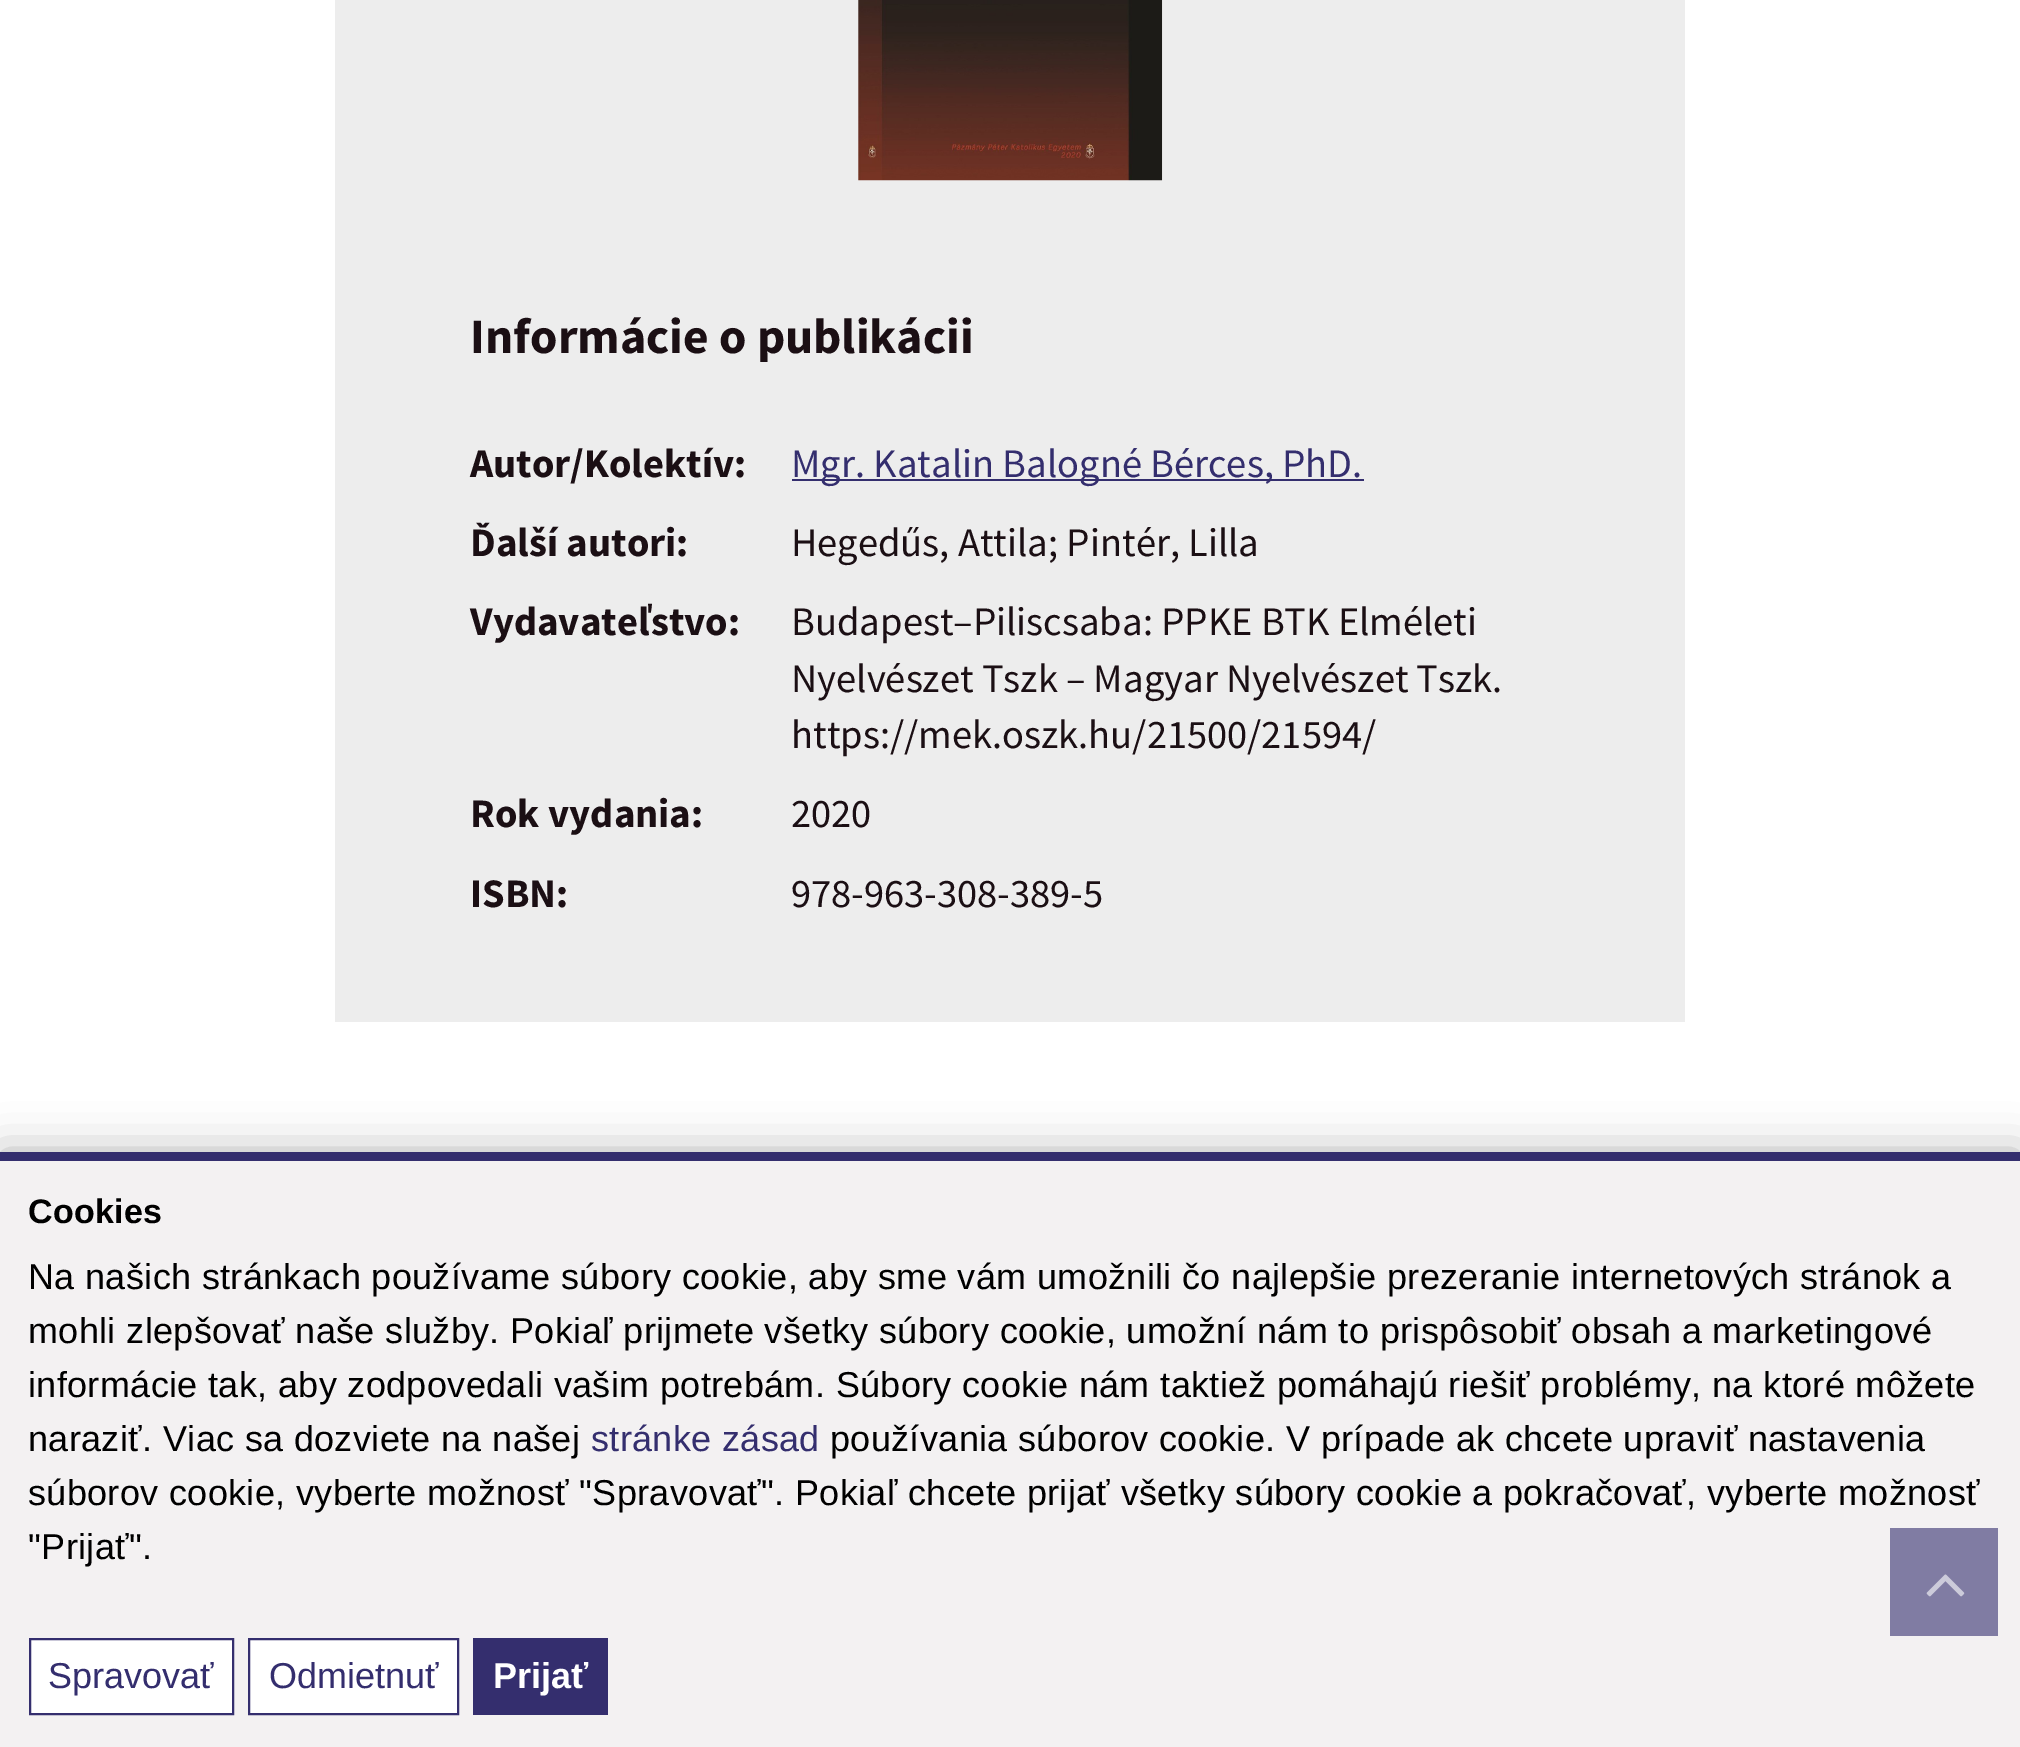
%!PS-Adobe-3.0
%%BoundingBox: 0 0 2020 1747
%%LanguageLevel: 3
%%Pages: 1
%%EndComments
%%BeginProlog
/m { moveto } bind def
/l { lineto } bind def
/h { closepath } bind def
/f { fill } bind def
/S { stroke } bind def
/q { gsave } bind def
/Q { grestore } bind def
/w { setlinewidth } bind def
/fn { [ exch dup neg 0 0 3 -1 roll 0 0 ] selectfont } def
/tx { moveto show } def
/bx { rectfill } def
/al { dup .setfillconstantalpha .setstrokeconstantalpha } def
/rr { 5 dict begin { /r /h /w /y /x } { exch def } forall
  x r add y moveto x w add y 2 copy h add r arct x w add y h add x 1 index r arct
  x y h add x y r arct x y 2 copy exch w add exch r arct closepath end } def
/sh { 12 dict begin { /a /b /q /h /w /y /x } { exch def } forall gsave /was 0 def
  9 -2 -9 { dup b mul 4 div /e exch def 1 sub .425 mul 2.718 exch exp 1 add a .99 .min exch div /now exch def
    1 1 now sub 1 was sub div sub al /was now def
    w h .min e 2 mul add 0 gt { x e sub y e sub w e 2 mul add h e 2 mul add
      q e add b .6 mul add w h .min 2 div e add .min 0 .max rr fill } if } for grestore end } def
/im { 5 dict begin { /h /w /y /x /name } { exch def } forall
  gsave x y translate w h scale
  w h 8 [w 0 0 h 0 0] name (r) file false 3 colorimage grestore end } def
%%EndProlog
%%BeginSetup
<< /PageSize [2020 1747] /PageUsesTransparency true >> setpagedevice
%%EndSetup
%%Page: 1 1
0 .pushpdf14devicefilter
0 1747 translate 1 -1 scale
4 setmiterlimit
1 setgray
0 0 2020 1747 bx
0.929 setgray
335 0 1350 1022 bx
(image0.raw) 858 0 305 181 im
/SourceSansPro-Bold 49.5 fn
0.106 0.059 0.078 setrgbcolor
(Informácie o publikácii) 470 353 tx
/SourceSansPro-Bold 40.5 fn
(Autor/Kolektív:) 470 477 tx
0.204 0.18 0.431 setrgbcolor
792 479 572 2 bx
/SourceSansPro-Regular 40.5 fn
(Mgr. Katalin Balogné Bérces, PhD.) 791 477 tx
/SourceSansPro-Bold 40.5 fn
0.106 0.059 0.078 setrgbcolor
(Ďalší autori:) 470 556 tx
/SourceSansPro-Regular 40.5 fn
(Hegedűs, Attila; Pintér, Lilla) 791 556 tx
/SourceSansPro-Bold 40.5 fn
(Vydavateľstvo:) 470 635 tx
/SourceSansPro-Regular 40.5 fn
(Budapest–Piliscsaba: PPKE BTK Elméleti) 791 635 tx
(Nyelvészet Tszk – Magyar Nyelvészet Tszk.) 791 692 tx
(https://mek.oszk.hu/21500/21594/) 791 748 tx
/SourceSansPro-Bold 40.5 fn
(Rok vydania:) 470 827 tx
/SourceSansPro-Regular 40.5 fn
(2020) 791 827 tx
/SourceSansPro-Bold 40.5 fn
(ISBN:) 470 907 tx
/SourceSansPro-Regular 40.5 fn
(978-963-308-389-5) 791 907 tx
0.392 setgray
0 1152 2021 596 0 22.5 0.5 sh
0.953 0.945 0.949 setrgbcolor
0 1161 2020 586 bx
0.204 0.18 0.431 setrgbcolor
0 1152 2020 9 bx
/LiberationSans-Bold 34 fn
0 setgray
28 1223 m 0.25 0 (Cookies) ashow
/LiberationSans-Regular 36 fn
28 1289 m 0.36 0 (Na našich stránkach používame súbory cookie, aby sme vám umožnili čo najlepšie prezeranie internetových stránok a) ashow
28 1343 m 0.36 0 (mohli zlepšovať naše služby. Pokiaľ prijmete všetky súbory cookie, umožní nám to prispôsobiť obsah a marketingové) ashow
28 1397 m 0.36 0 (informácie tak, aby zodpovedali vašim potrebám. Súbory cookie nám taktiež pomáhajú riešiť problémy, na ktoré môžete) ashow
28 1451 m 0.36 0 (naraziť. Viac sa dozviete na našej) ashow
0.204 0.18 0.431 setrgbcolor
591 1451 m 0.36 0 (stránke zásad) ashow
0 setgray
830 1451 m 0.36 0 (používania súborov cookie. V prípade ak chcete upraviť nastavenia) ashow
28 1505 m 0.36 0 (súborov cookie, vyberte možnosť "Spravovať". Pokiaľ chcete prijať všetky súbory cookie a pokračovať, vyberte možnosť) ashow
28 1559 m 0.36 0 ("Prijať".) ashow
1 setgray
30 1639 m 233 1639 l 233 1714 l 30 1714 l h q f Q
0.204 0.18 0.431 setrgbcolor
2 w
S
(Spravovať) 48 1688 tx
1 setgray
249 1639 m 458 1639 l 458 1714 l 249 1714 l h q f Q
0.204 0.18 0.431 setrgbcolor
S
(Odmietnuť) 269 1688 tx
473 1638 135 77 bx
/LiberationSans-Bold 36 fn
1 setgray
(Prijať) 493 1688 tx
0.502 0.486 0.639 setrgbcolor
1890 1528 108 108 bx
(image1.raw) 1926 1574 39 23 im
.poppdf14devicefilter showpage
%%EOF
